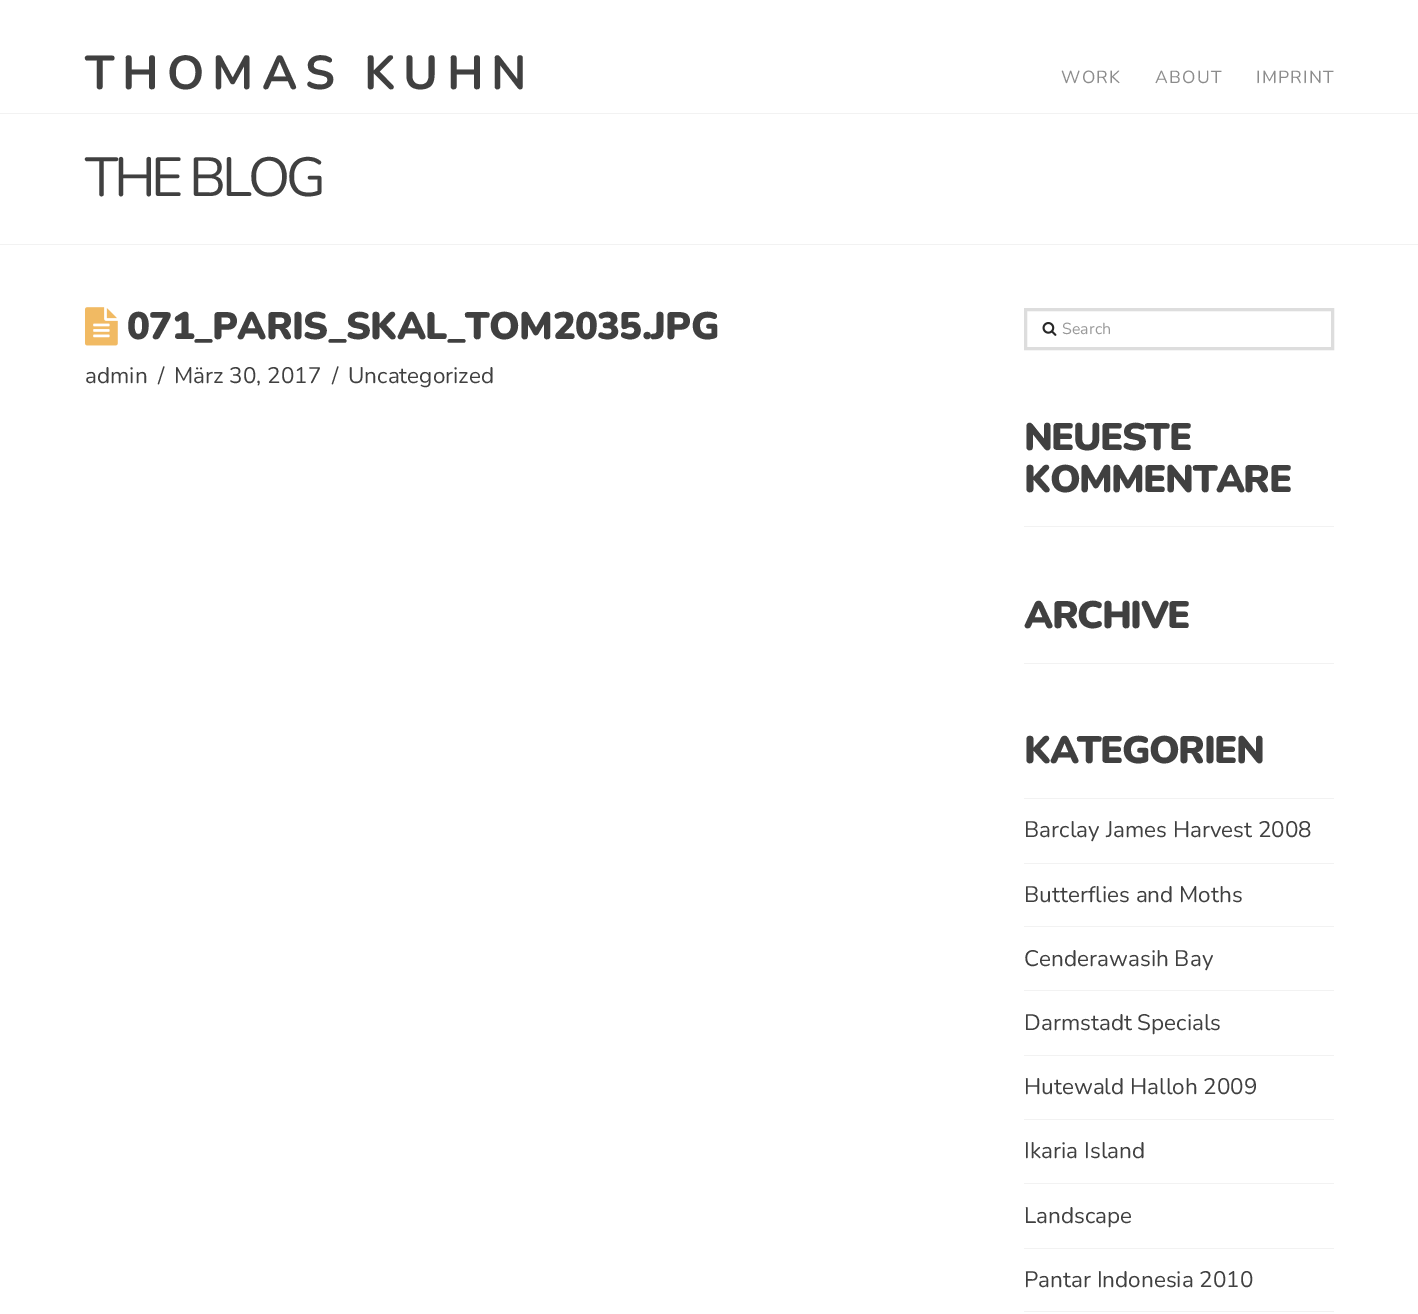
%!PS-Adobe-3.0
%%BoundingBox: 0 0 1418 1314
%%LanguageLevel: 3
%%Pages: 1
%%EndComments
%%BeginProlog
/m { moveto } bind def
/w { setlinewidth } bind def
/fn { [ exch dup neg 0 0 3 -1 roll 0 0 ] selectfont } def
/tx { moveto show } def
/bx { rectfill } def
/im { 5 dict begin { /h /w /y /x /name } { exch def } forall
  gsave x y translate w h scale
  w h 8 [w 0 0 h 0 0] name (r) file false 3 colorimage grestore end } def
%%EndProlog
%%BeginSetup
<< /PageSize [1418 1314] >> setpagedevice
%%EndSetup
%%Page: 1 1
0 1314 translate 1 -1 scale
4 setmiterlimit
1 setgray
0 0 1418 1314 bx
/Nunito-Bold 47.5 fn
0.251 setgray
85 89 m 8 0 (THOMAS KUHN) ashow
/Nunito-Regular 17.5 fn
0.549 setgray
1061 83 m 1.25 0 (WORK) ashow
1155 83 m 1.25 0 (ABOUT) ashow
1256 83 m 1.25 0 (IMPRINT) ashow
0.949 setgray
0 113 1418 1 bx
0 244 1418 1 bx
/Nunito-Regular 55 fn
0.251 setgray
85 196 m -4.25 0 (THE BLOG) ashow
(image0.raw) 85 307 33 39 im
/Nunito-Black 38.25 fn
127 339 m -0.7 0 (071_PARIS_SKAL_TOM2035.JPG) ashow
/Nunito-Regular 22.5 fn
(admin) 85 383 tx
(/) 158 383 tx
(März 30, 2017) 174 383 tx
(/) 332 383 tx
(Uncategorized) 348 383 tx
0.867 setgray
3 w
1025.5 309.5 307 39 rectstroke
(image1.raw) 1042 322 15 14 im
/Nunito-Regular 16 fn
0.6 setgray
(Search) 1062 334 tx
/Nunito-Black 38.25 fn
0.251 setgray
1024 450 m -1.6 0 (NEUESTE) ashow
1024 492 m -1.6 0 (KOMMENTARE) ashow
0.949 setgray
1024 526 310 1 bx
0.251 setgray
1024 628 m -1.6 0 (ARCHIVE) ashow
0.949 setgray
1024 663 310 1 bx
0.251 setgray
1024 763 m -1.6 0 (KATEGORIEN) ashow
0.949 setgray
1024 798 310 1 bx
/Nunito-Regular 22.5 fn
0.251 setgray
(Barclay James Harvest 2008) 1024 837 tx
0.949 setgray
1024 863 310 1 bx
0.251 setgray
(Butterflies and Moths) 1024 902 tx
0.949 setgray
1024 926 310 1 bx
0.251 setgray
(Cenderawasih Bay) 1024 966 tx
0.949 setgray
1024 990 310 1 bx
0.251 setgray
(Darmstadt Specials) 1024 1030 tx
0.949 setgray
1024 1055 310 1 bx
0.251 setgray
(Hutewald Halloh 2009) 1024 1094 tx
0.949 setgray
1024 1119 310 1 bx
0.251 setgray
(Ikaria Island) 1024 1158 tx
0.949 setgray
1024 1183 310 1 bx
0.251 setgray
(Landscape) 1024 1223 tx
0.949 setgray
1024 1248 310 1 bx
0.251 setgray
(Pantar Indonesia 2010) 1024 1287 tx
0.949 setgray
1024 1311 310 1 bx
showpage
%%EOF
